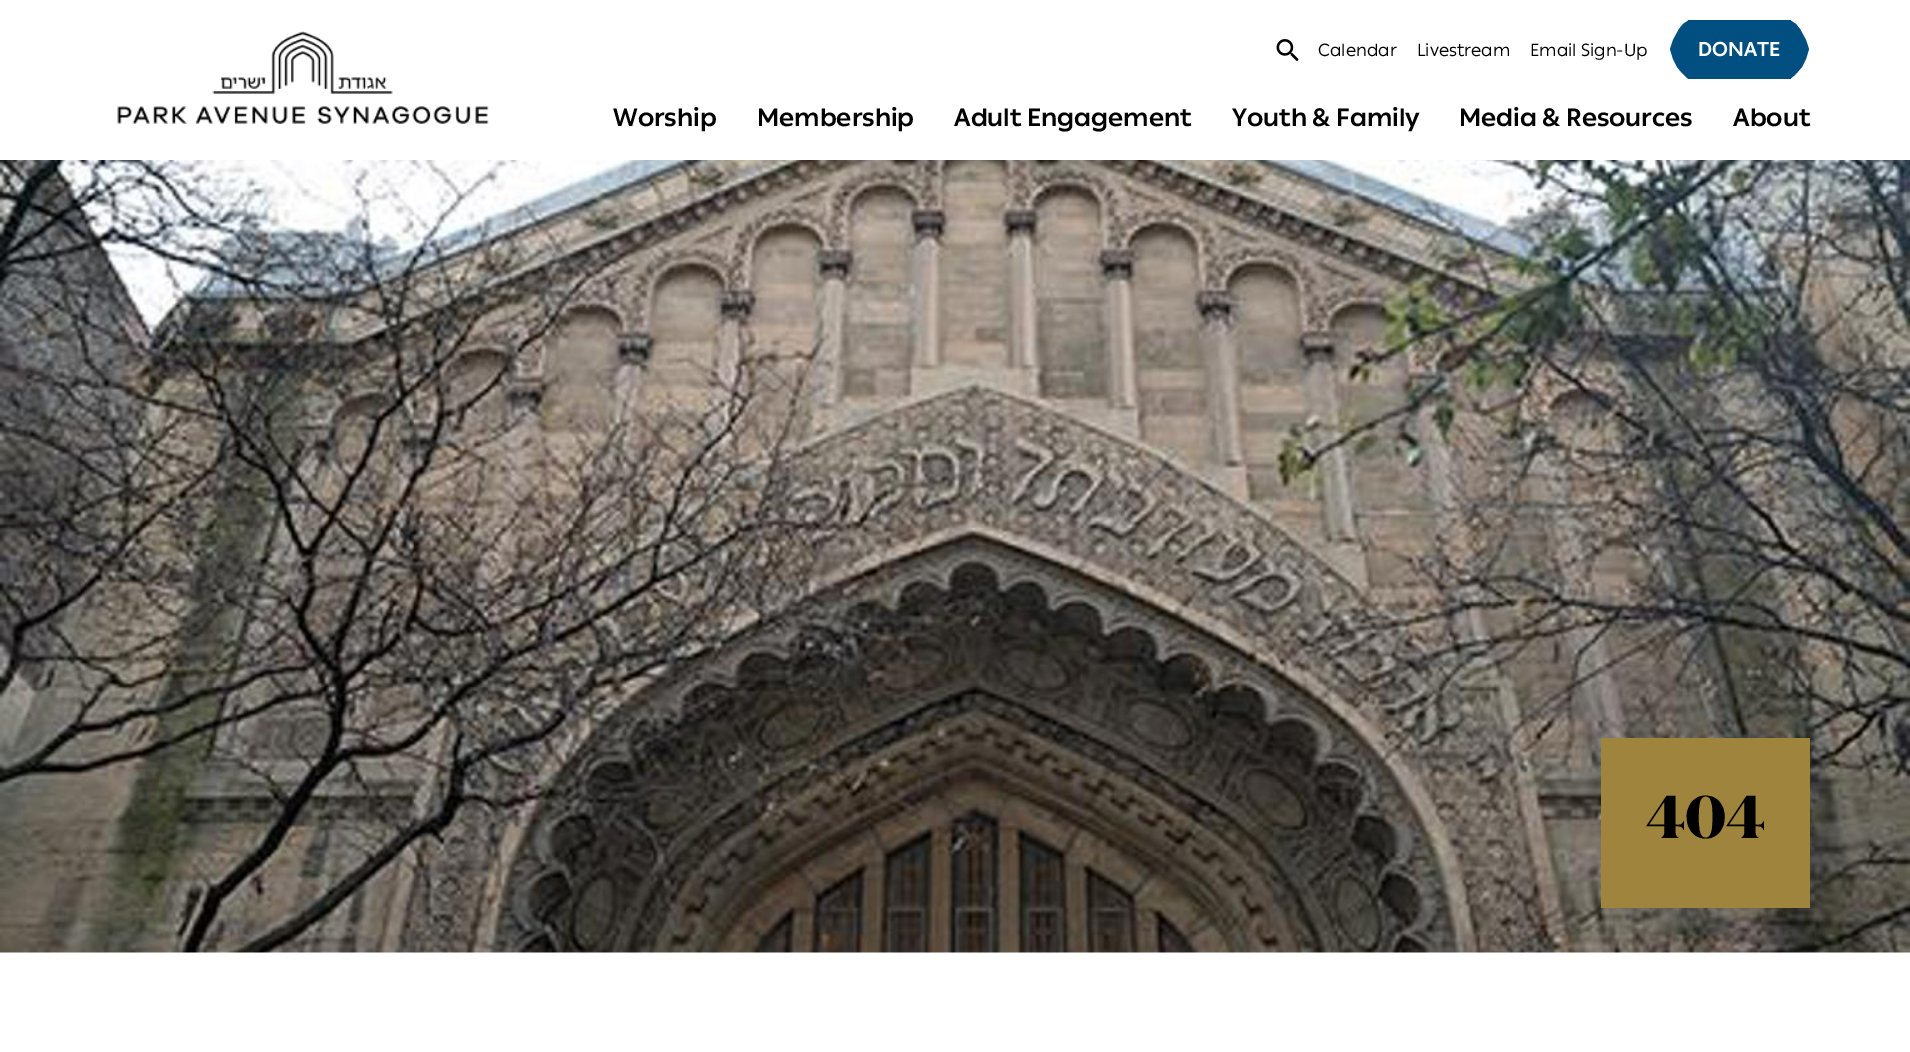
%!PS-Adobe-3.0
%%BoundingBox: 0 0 1910 1052
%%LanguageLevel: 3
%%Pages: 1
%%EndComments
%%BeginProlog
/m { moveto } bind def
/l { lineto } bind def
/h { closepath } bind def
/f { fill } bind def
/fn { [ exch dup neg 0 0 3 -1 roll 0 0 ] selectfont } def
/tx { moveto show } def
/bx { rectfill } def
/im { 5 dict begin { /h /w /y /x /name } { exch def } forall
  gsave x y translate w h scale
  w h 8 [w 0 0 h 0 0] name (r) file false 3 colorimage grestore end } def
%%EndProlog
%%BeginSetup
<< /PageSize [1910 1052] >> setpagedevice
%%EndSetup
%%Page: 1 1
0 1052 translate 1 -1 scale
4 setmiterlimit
1 setgray
0 0 1910 1052 bx
(image0.raw) 117 31 372 93 im
(image1.raw) 1276 39 23 22 im
/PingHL-Regular 17.5 fn
0 setgray
(Calendar) 1318 56 tx
(Livestream) 1417 56 tx
(Email Sign-Up) 1530 56 tx
0 0.31 0.502 setrgbcolor
1688 20 103 59 bx
1689 79 m 1689 20 l 1683 24 l 1679 29 l 1673 40 l 1670 49 l 1673 59 l 1677 67 l 1682 73 l 1687 78 l h f
/PingHL-Bold 20 fn
1 setgray
(DONATE) 1698 56 tx
0 0.31 0.502 setrgbcolor
1790 79 m 1795 75 l 1802 67 l 1806 59 l 1809 49 l 1806 40 l 1800 29 l 1796 24 l 1790 20 l h f
/PingHL-Bold 25 fn
0 setgray
(Worship) 613 126 tx
(Membership) 757 126 tx
(Adult Engagement) 954 126 tx
(Youth & Family) 1232 126 tx
(Media & Resources) 1459 126 tx
(About) 1733 126 tx
(image2.raw) 0 160 1910 793 im
0.62 0.518 0.239 setrgbcolor
1601 738 209 170 bx
/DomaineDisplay-Bold 60 fn
0 setgray
(404) 1646 838 tx
showpage
%%EOF
